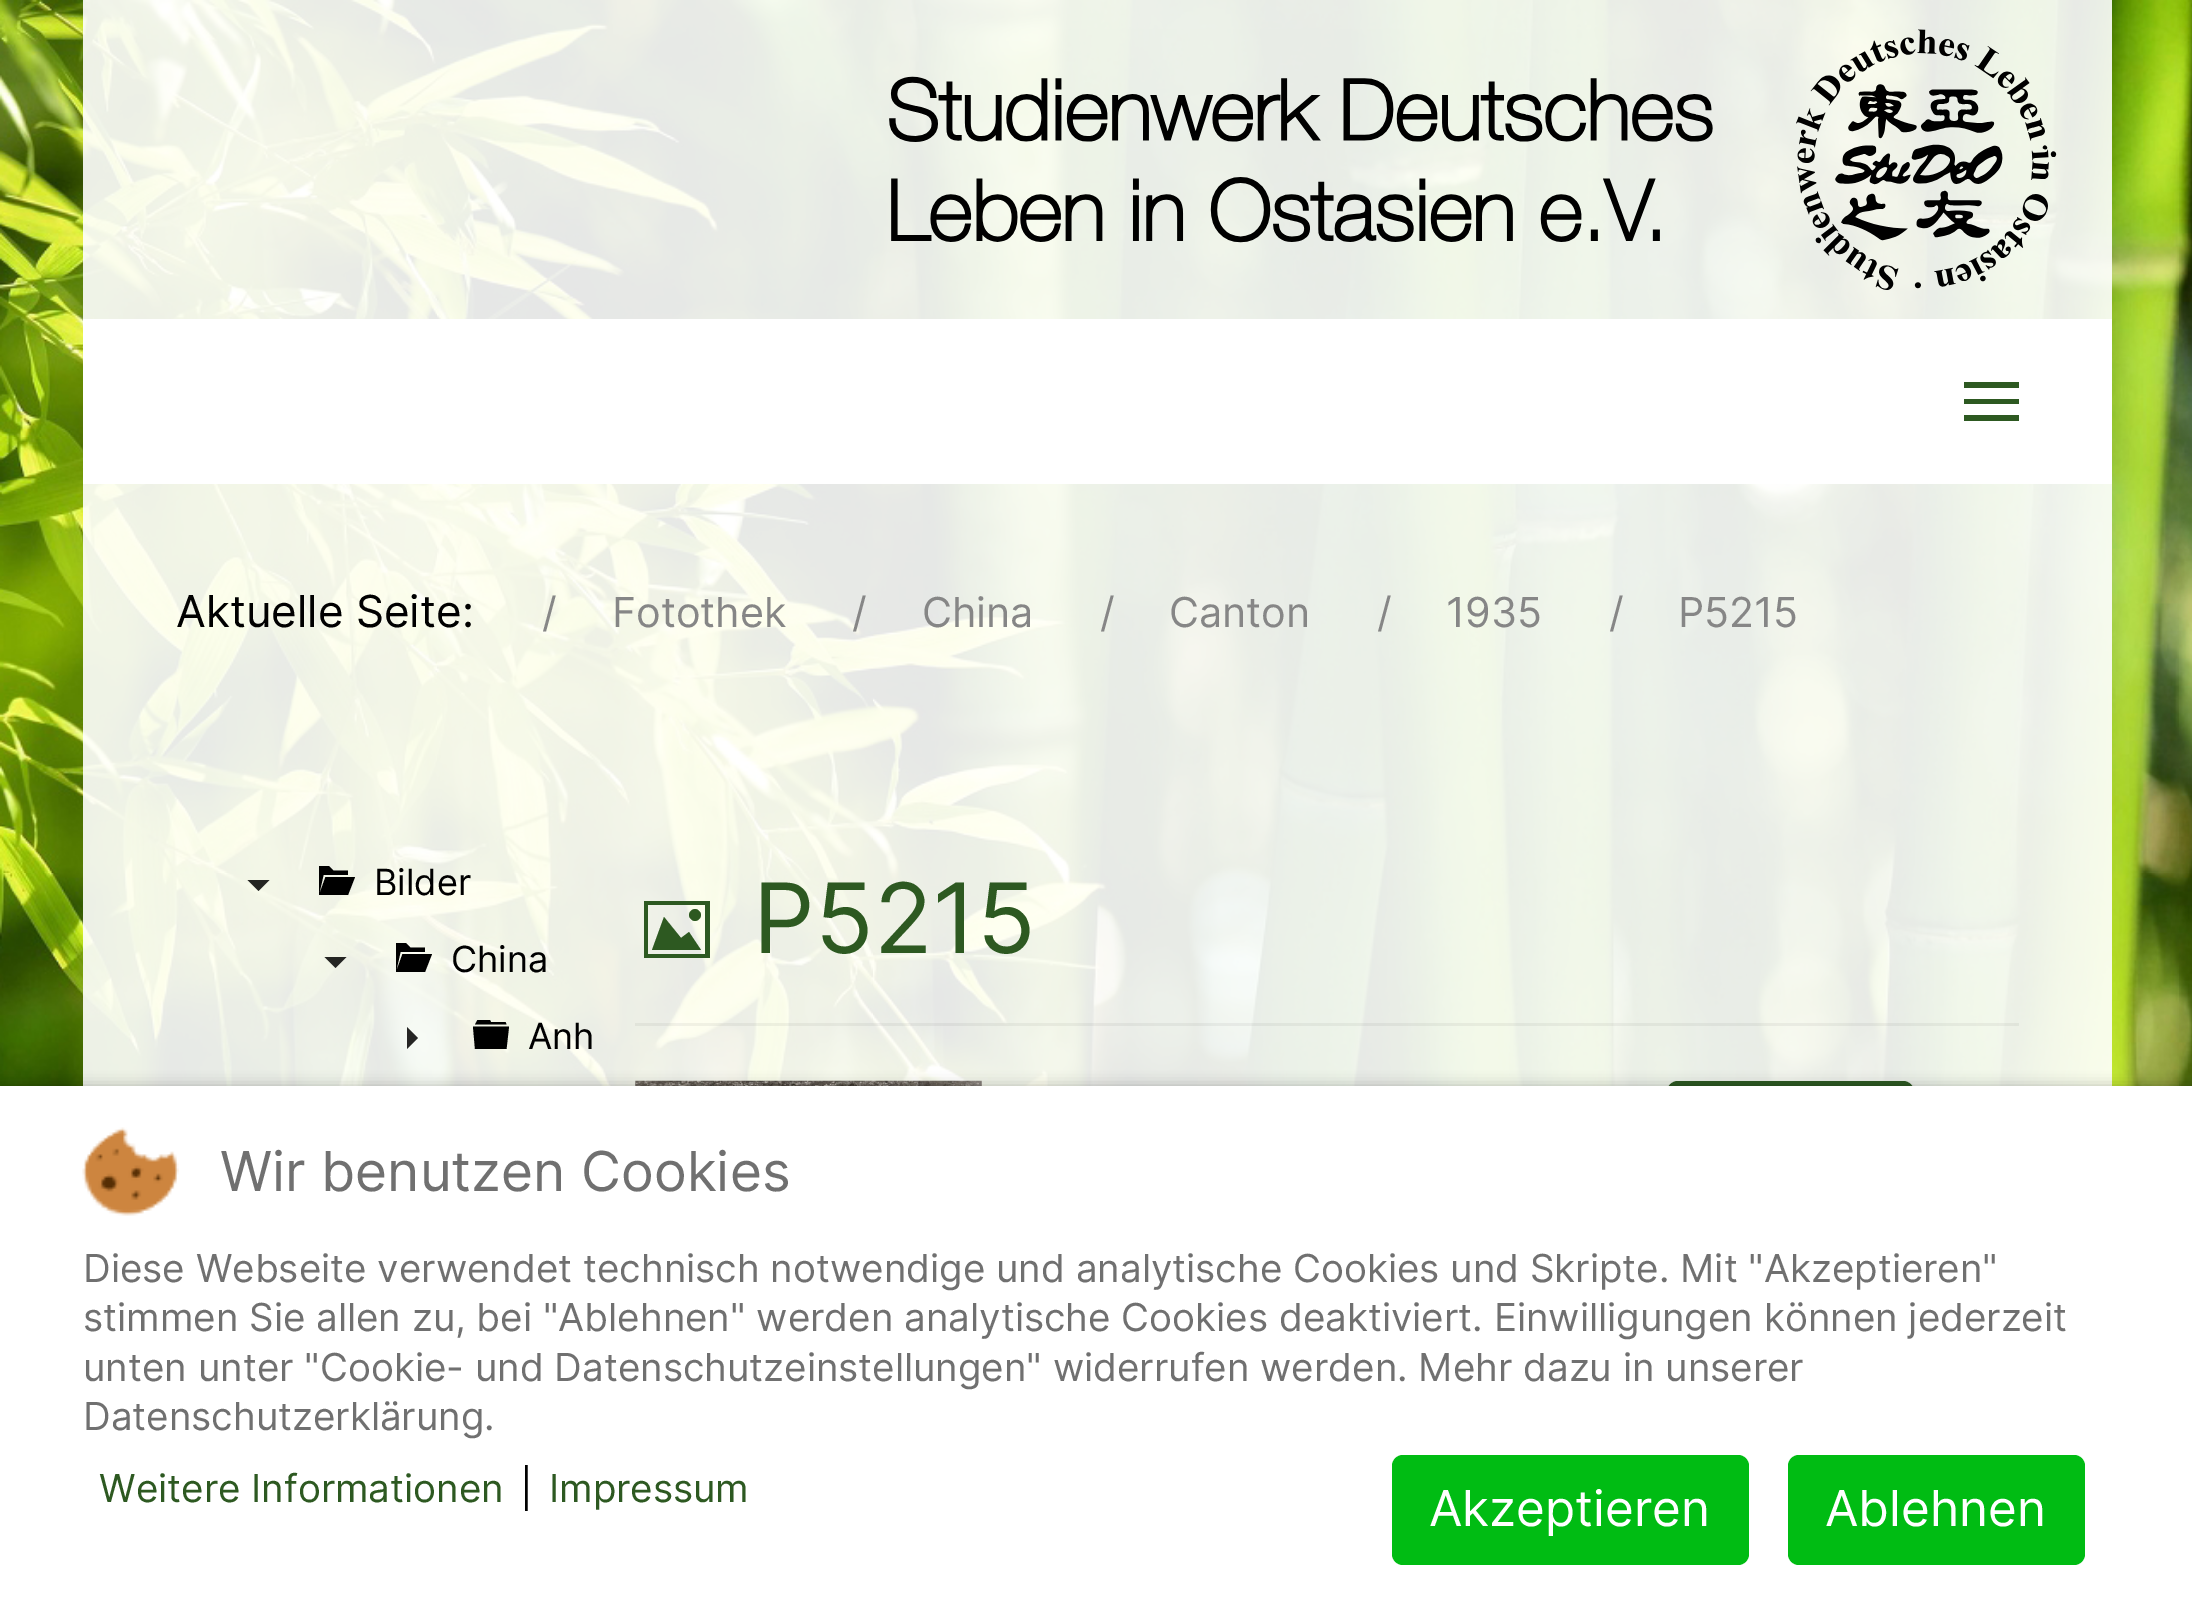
%!PS-Adobe-3.0
%%BoundingBox: 0 0 2192 1606
%%LanguageLevel: 3
%%Pages: 1
%%EndComments
%%BeginProlog
/m { moveto } bind def
/l { lineto } bind def
/c { curveto } bind def
/h { closepath } bind def
/f { fill } bind def
/fn { [ exch dup neg 0 0 3 -1 roll 0 0 ] selectfont } def
/tx { moveto show } def
/bx { rectfill } def
/al { dup .setfillconstantalpha .setstrokeconstantalpha } def
/rr { 5 dict begin { /r /h /w /y /x } { exch def } forall
  x r add y moveto x w add y 2 copy h add r arct x w add y h add x 1 index r arct
  x y h add x y r arct x y 2 copy exch w add exch r arct closepath end } def
/sh { 12 dict begin { /a /b /q /h /w /y /x } { exch def } forall gsave /was 0 def
  9 -2 -9 { dup b mul 4 div /e exch def 1 sub .425 mul 2.718 exch exp 1 add a .99 .min exch div /now exch def
    1 1 now sub 1 was sub div sub al /was now def
    w h .min e 2 mul add 0 gt { x e sub y e sub w e 2 mul add h e 2 mul add
      q e add b .6 mul add w h .min 2 div e add .min 0 .max rr fill } if } for grestore end } def
/im { 5 dict begin { /h /w /y /x /name } { exch def } forall
  gsave x y translate w h scale
  w h 8 [w 0 0 h 0 0] name (r) file false 3 colorimage grestore end } def
%%EndProlog
%%BeginSetup
<< /PageSize [2192 1606] /PageUsesTransparency true >> setpagedevice
%%EndSetup
%%Page: 1 1
0 .pushpdf14devicefilter
0 1606 translate 1 -1 scale
4 setmiterlimit
1 setgray
0 0 2192 1606 bx
(image0.raw) 0 0 2192 1086 im
0.9 al
83 0 2029 319 bx
1 al
(image1.raw) 889 29 1168 261 im
83 319 2029 165 bx
0.176 0.349 0.129 setrgbcolor
1964 382 55 6 bx
1964 399 55 5 bx
1964 415 55 6 bx
0.9 al
1 setgray
83 484 2029 256 bx
/Inter-Regular 44 fn
1 al
0 setgray
(Aktuelle Seite:) 176 627 tx
/Inter-Regular 41.25 fn
0.525 setgray
(/) 542 627 tx
(Fotothek) 612 627 tx
(/) 852 627 tx
(China) 922 627 tx
(/) 1100 627 tx
(Canton) 1169 627 tx
(/) 1377 627 tx
(1935) 1446 627 tx
(/) 1609 627 tx
(P5215) 1678 627 tx
0.9 al
1 setgray
83 740 2029 346 bx
0.85 al
0 setgray
247.5 880 m 269.5 880 l 258.5 891 l h f
1 al
348 895 m 319 895 l 325.5 877 l 355 877 l h 323.5 875 m 319 895 l 319 866 l 329 866 l 333.5 870.5 l 348 870.5 l 348 875 l h f
/Inter-Regular 36 fn
(Bilder) 374 895 tx
0.85 al
324.5 957 m 346.5 957 l 335.5 968 l h f
1 al
425 972 m 396 972 l 402.5 954 l 432 954 l h 400.5 952 m 396 972 l 396 943 l 406 943 l 410.5 947.5 l 425 947.5 l 425 952 l h f
(China) 451 972 tx
0.85 al
407 1049 m 407 1027 l 418 1038 l h f
1 al
473 1026.5 m 509 1026.5 l 506.5 1049 l 475 1049 l h 505.5 1022 m 506.5 1024.5 l 475 1024.5 l 477.5 1020 l 490 1020 l 491 1022 l h f
(Anh) 528 1049 tx
0.176 0.349 0.129 setrgbcolor
644 901 m 710 901 l 710 958 l 644 958 l h 705 954 m 705 905 l 648 905 l 648 954 l h 691 919 m 685 914 694 905 699 911 c 705 916 696 925 691 919 c h 701 950 m 652 950 l 664 917 l 681 938 l 689 932 l h f
/Inter-Regular 97 fn
(P5215) 753 953 tx
0.05 al
0 setgray
635 1023 1384 3 bx
1 al
(image2.raw) 635 1080 347 6 im
1669 1084 248 156 11 1.5 0.1 sh
0.176 0.349 0.129 setrgbcolor
1667 1081 247 157 11 rr f
0 setgray
0 1086 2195 520 0 7 0.25 sh
1 setgray
0 1086 2192 520 bx
(image3.raw) 82 1127 97 89 im
/Inter-Regular 55 fn
0.439 setgray
(Wir benutzen Cookies) 220 1191 tx
/Inter-Regular 38.5 fn
(Diese Webseite verwendet technisch notwendige und analytische Cookies und Skripte. Mit "Akzeptieren") 83 1282 tx
(stimmen Sie allen zu, bei "Ablehnen" werden analytische Cookies deaktiviert. Einwilligungen können jederzeit) 83 1331 tx
(unten unter "Cookie- und Datenschutzeinstellungen" widerrufen werden. Mehr dazu in unserer) 83 1381 tx
(Datenschutzerklärung.) 83 1430 tx
0.176 0.349 0.129 setrgbcolor
(Weitere Informationen) 99 1502 tx
0 setgray
(|) 520 1502 tx
0.176 0.349 0.129 setrgbcolor
(Impressum) 549 1502 tx
0 0.737 0.075 setrgbcolor
1392 1455 357 110 11 rr f
/Inter-Regular 49.5 fn
1 setgray
(Akzeptieren) 1429 1526 tx
0 0.737 0.075 setrgbcolor
1788 1455 297 110 11 rr f
1 setgray
(Ablehnen) 1825 1526 tx
.poppdf14devicefilter showpage
%%EOF
